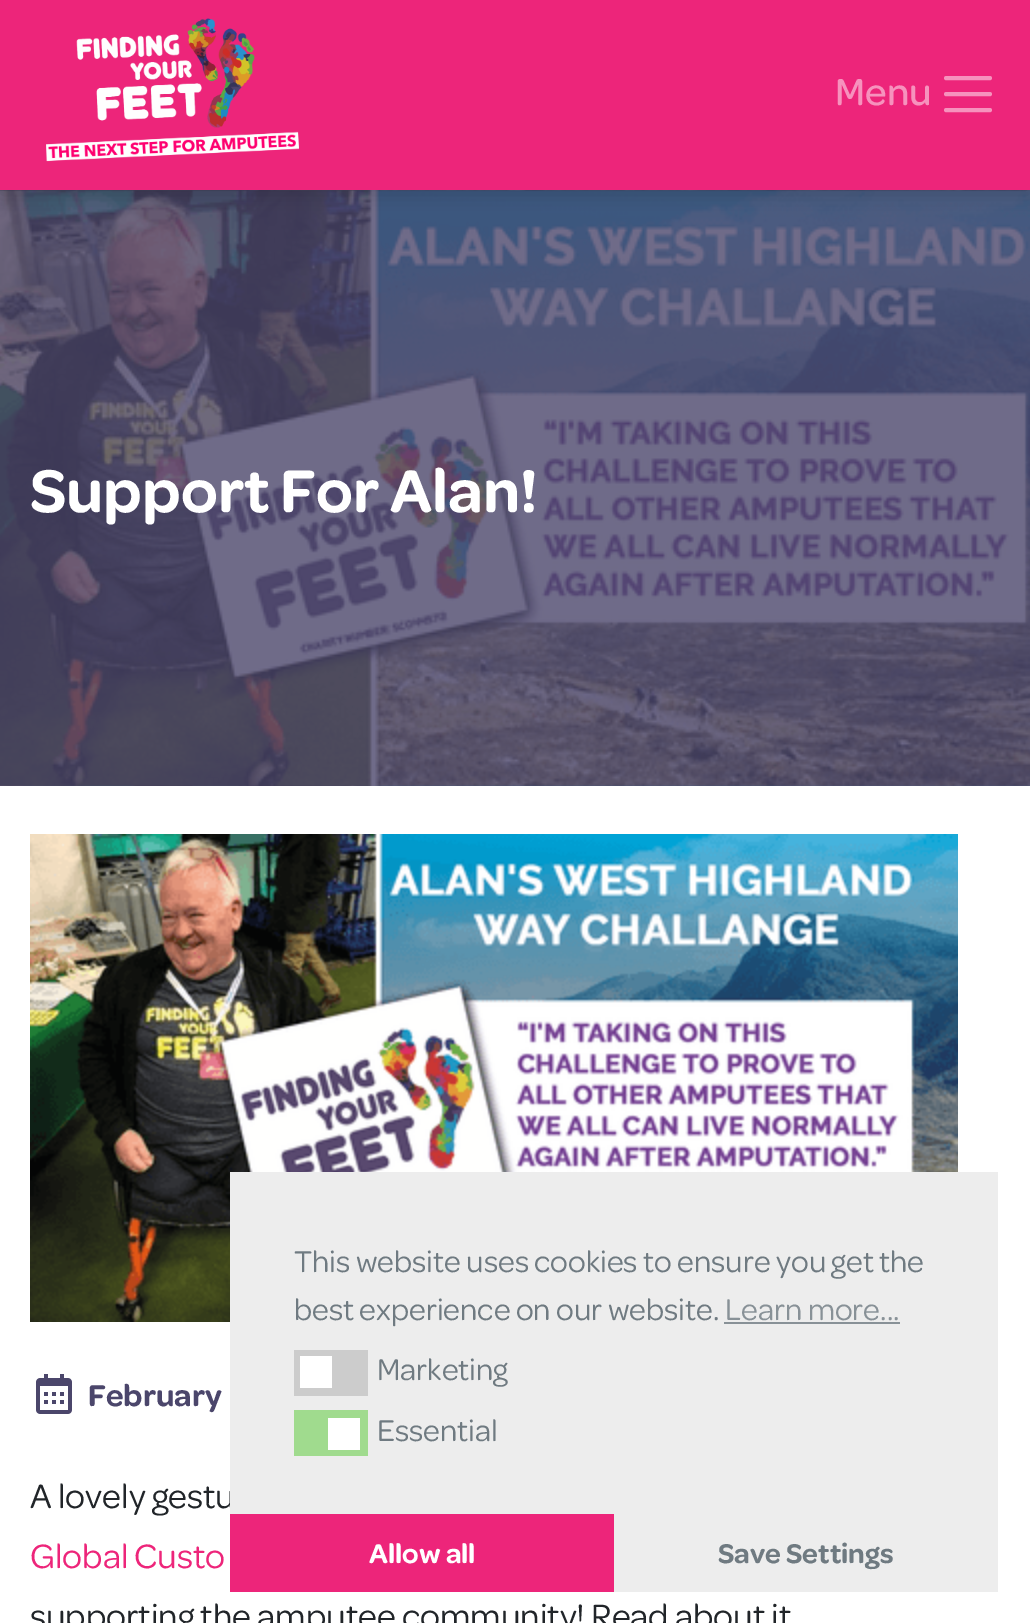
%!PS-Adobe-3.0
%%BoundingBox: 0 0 1030 1623
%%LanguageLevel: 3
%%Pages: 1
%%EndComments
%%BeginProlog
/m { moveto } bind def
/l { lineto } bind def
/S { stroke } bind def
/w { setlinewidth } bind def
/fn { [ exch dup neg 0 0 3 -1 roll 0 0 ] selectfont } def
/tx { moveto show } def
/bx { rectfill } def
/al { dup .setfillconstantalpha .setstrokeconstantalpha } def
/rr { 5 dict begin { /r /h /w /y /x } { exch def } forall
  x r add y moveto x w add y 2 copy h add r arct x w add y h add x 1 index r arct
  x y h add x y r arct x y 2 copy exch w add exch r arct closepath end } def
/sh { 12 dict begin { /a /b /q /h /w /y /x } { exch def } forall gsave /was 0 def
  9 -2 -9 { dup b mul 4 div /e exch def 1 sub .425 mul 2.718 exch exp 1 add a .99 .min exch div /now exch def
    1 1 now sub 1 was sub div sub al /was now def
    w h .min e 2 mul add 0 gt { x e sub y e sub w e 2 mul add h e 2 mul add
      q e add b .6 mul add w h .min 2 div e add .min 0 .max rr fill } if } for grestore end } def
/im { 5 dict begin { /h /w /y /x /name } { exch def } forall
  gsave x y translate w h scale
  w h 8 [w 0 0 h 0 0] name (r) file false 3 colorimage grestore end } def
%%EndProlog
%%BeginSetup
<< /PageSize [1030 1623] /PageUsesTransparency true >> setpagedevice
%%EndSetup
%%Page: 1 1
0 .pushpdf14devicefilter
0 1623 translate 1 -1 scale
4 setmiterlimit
1 setgray
0 0 1030 1623 bx
(image1.raw) 0 190 1030 596 im
0 setgray
0 4 1030 190 0 10 0.17 sh
0.929 0.145 0.478 setrgbcolor
0 0 1030 190 bx
(image0.raw) 46 18 253 144 im
/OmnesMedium-Medium 40 fn
0.965 0.573 0.741 setrgbcolor
(Menu) 835 105 tx
4 w
1 setlinecap
946 78 m 990 78 l 946 94 m 990 94 l 946 110 m 990 110 l S
/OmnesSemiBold-SemiBold 64 fn
1 setgray
(Support For Alan!) 30 512 tx
(image2.raw) 30 834 928 488 im
/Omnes-Regular 36 fn
0.129 0.145 0.161 setrgbcolor
(A lovely gestu) 30 1508 tx
0.929 setgray
230 1172 768 420 bx
/Omnes-Regular 32 fn
0.435 0.478 0.506 setrgbcolor
(This website uses cookies to ensure you get the) 294 1272 tx
(best experience on our website.) 294 1320 tx
0.533 0.569 0.592 setrgbcolor
(Learn more...) 725 1320 tx
724 1322 176 2 bx
0.8 setgray
294 1350 74 46 bx
1 setgray
300 1356 32 32 bx
0.435 0.478 0.506 setrgbcolor
(Marketing) 377 1380 tx
0.627 0.859 0.557 setrgbcolor
294 1410 74 46 bx
1 setgray
328 1418 32 32 bx
0.435 0.478 0.506 setrgbcolor
(Essential) 377 1441 tx
0.929 0.145 0.478 setrgbcolor
230 1514 384 78 bx
/OmnesSemiBold-SemiBold 28.75 fn
1 setgray
(Allow all) 369 1563 tx
0.435 0.478 0.506 setrgbcolor
(Save Settings) 718 1563 tx
(image3.raw) 36 1374 36 40 im
/OmnesSemiBold-SemiBold 32 fn
0.294 0.275 0.42 setrgbcolor
(February) 88 1406 tx
/Omnes-Regular 36 fn
0.929 0.145 0.478 setrgbcolor
(Global Custo) 30 1568 tx
0.129 0.145 0.161 setrgbcolor
(supporting the amputee community! Read about it) 30 1628 tx
.poppdf14devicefilter showpage
%%EOF
